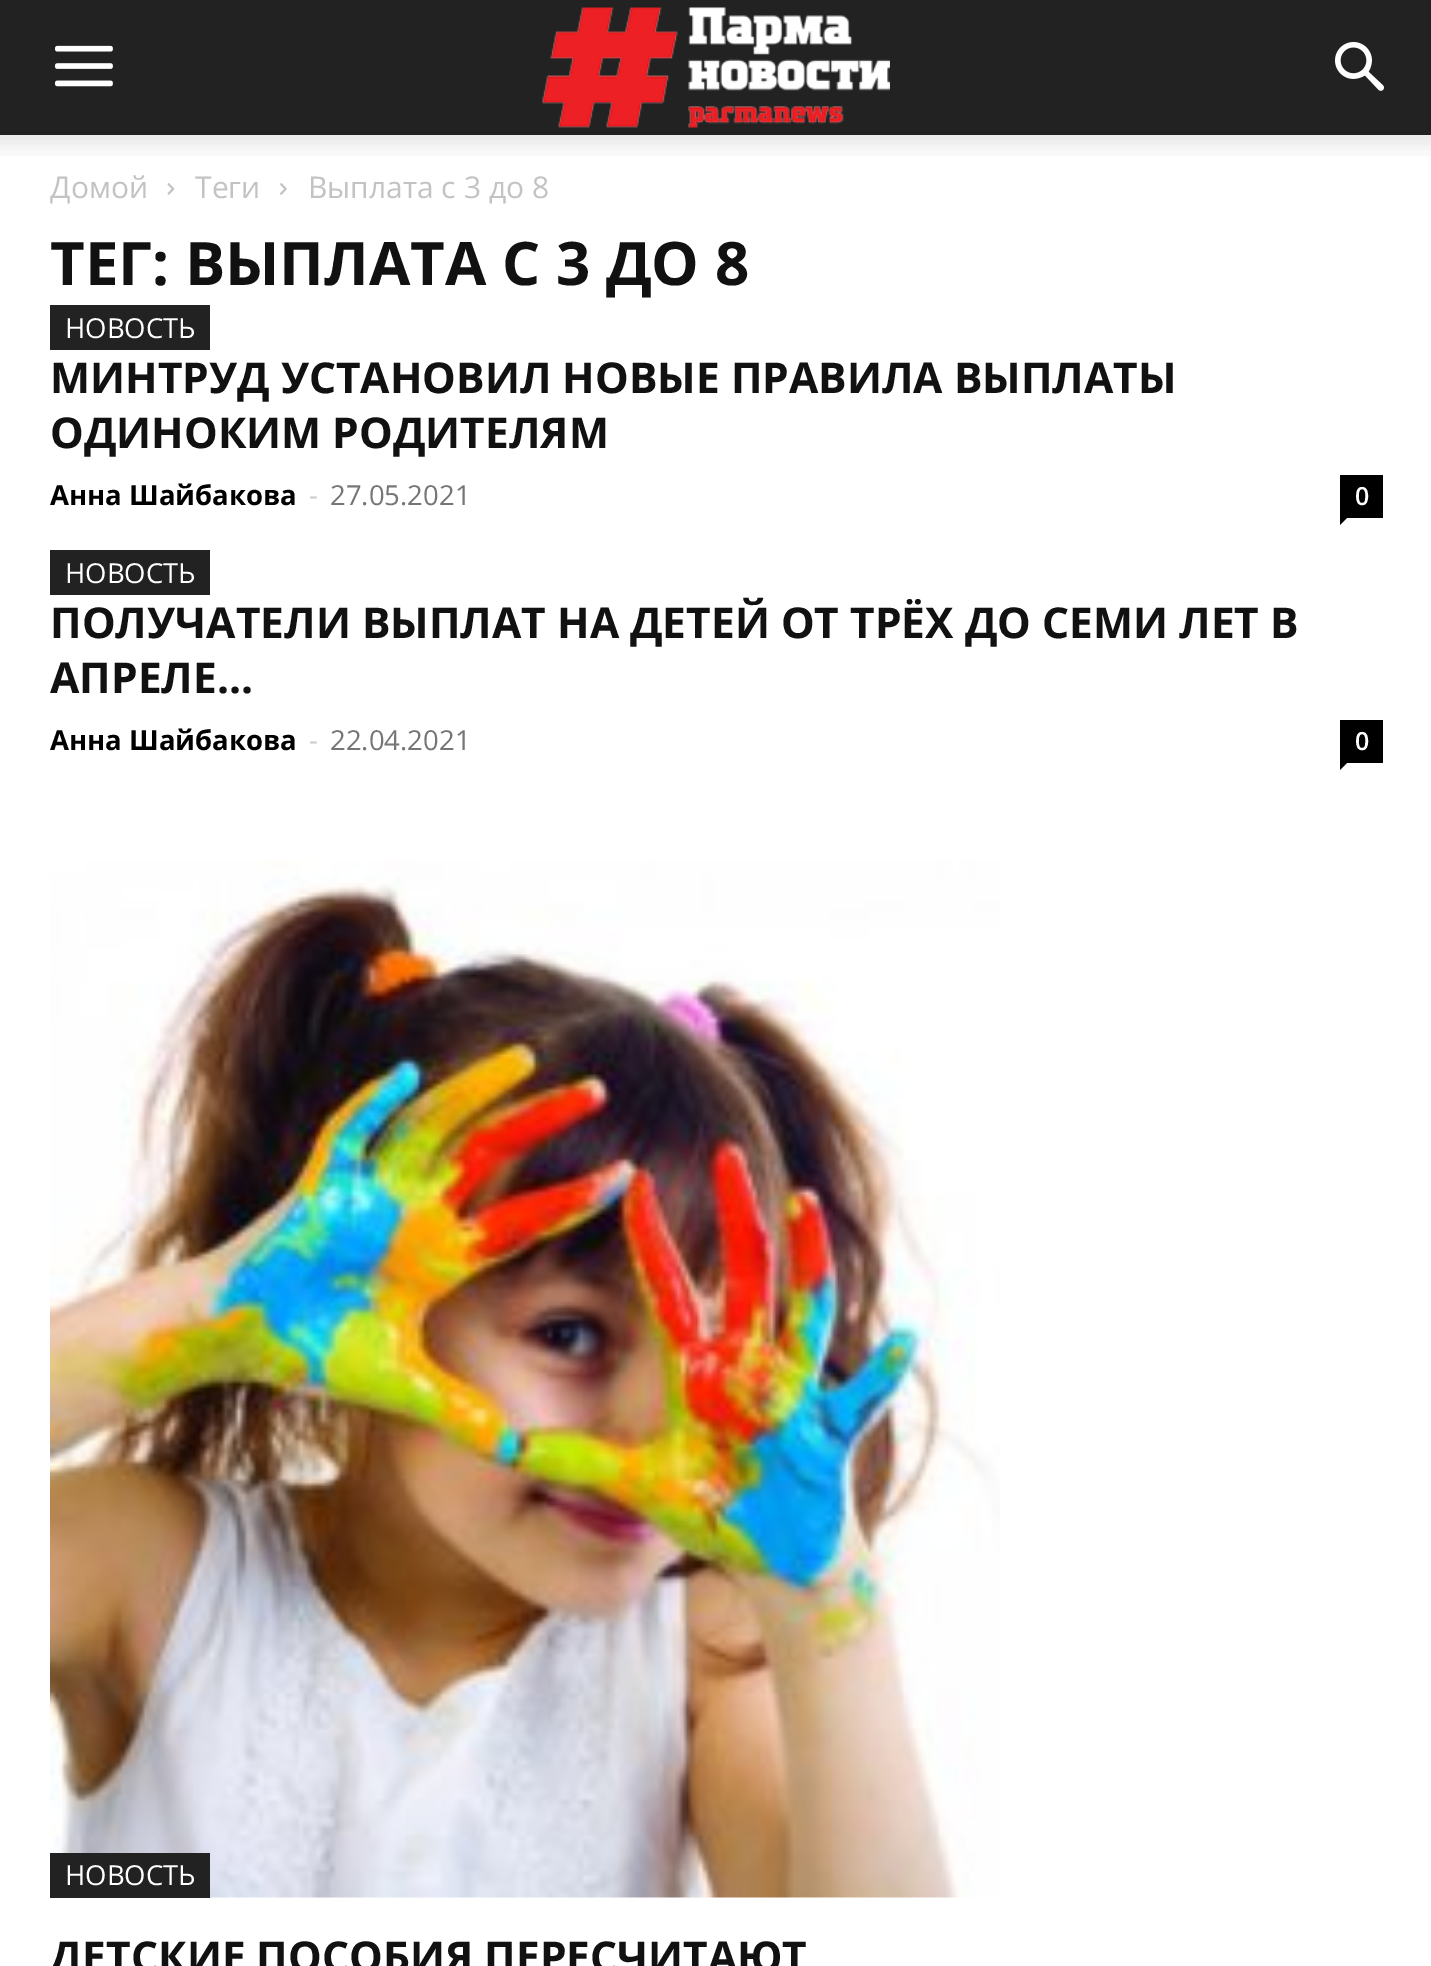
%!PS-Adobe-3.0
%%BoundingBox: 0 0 1431 1966
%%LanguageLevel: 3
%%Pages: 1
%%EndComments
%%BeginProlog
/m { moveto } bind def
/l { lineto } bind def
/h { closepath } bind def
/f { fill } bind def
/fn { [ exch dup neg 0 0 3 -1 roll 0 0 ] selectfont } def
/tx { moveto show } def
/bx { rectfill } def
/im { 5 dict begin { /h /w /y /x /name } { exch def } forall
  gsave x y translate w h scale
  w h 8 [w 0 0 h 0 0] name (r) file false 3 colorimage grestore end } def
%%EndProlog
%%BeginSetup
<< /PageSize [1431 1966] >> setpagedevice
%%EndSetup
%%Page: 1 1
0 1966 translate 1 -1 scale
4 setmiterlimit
1 setgray
0 0 1431 1966 bx
0.133 setgray
0 0 1431 135 bx
(image0.raw) 55 45 58 42 im
(image1.raw) 542 7 348 121 im
(image2.raw) 1335 42 49 49 im
(image3.raw) 0 135 1431 21 im
/OpenSans-Regular 30 fn
0.765 setgray
(Домой) 50 198 tx
(image4.raw) 167 183 8 12 im
(Теги) 195 198 tx
(image5.raw) 280 183 7 12 im
(Выплата с 3 до 8) 308 198 tx
/OpenSans-Bold 60 fn
0.067 setgray
(ТЕГ: ВЫПЛАТА С 3 ДО 8) 50 285 tx
0.133 setgray
50 305 160 45 bx
/OpenSans-Regular 27.5 fn
1 setgray
(НОВОСТЬ) 65 338 tx
/OpenSans-Bold 42.5 fn
0.067 setgray
(МИНТРУД УСТАНОВИЛ НОВЫЕ ПРАВИЛА ВЫПЛАТЫ) 50 393 tx
(ОДИНОКИМ РОДИТЕЛЯМ) 50 448 tx
/OpenSans-Bold 27.5 fn
0 setgray
(Анна Шайбакова) 50 505 tx
/OpenSans-Regular 27.5 fn
0.8 setgray
(-) 309 505 tx
0.463 setgray
(27.05.2021) 330 505 tx
0 setgray
1340 475 43 43 bx
/OpenSans-SemiBold 25 fn
1 setgray
(0) 1355 505 tx
0 setgray
1340 517.5 m 1347.5 517.5 l 1340 525 l h f
0.133 setgray
50 550 160 45 bx
/OpenSans-Regular 27.5 fn
1 setgray
(НОВОСТЬ) 65 583 tx
/OpenSans-Bold 42.5 fn
0.067 setgray
(ПОЛУЧАТЕЛИ ВЫПЛАТ НА ДЕТЕЙ ОТ ТРЁХ ДО СЕМИ ЛЕТ В) 50 638 tx
(АПРЕЛЕ...) 50 693 tx
/OpenSans-Bold 27.5 fn
0 setgray
(Анна Шайбакова) 50 750 tx
/OpenSans-Regular 27.5 fn
0.8 setgray
(-) 309 750 tx
0.463 setgray
(22.04.2021) 330 750 tx
0 setgray
1340 720 43 43 bx
/OpenSans-SemiBold 25 fn
1 setgray
(0) 1355 750 tx
0 setgray
1340 762.5 m 1347.5 762.5 l 1340 770 l h f
(image6.raw) 50 860 950 1038 im
0.133 setgray
50 1853 160 45 bx
/OpenSans-Regular 27.5 fn
1 setgray
(НОВОСТЬ) 65 1885 tx
/OpenSans-Bold 42.5 fn
0.067 setgray
(ДЕТСКИЕ ПОСОБИЯ ПЕРЕСЧИТАЮТ) 50 1972 tx
showpage
%%EOF
